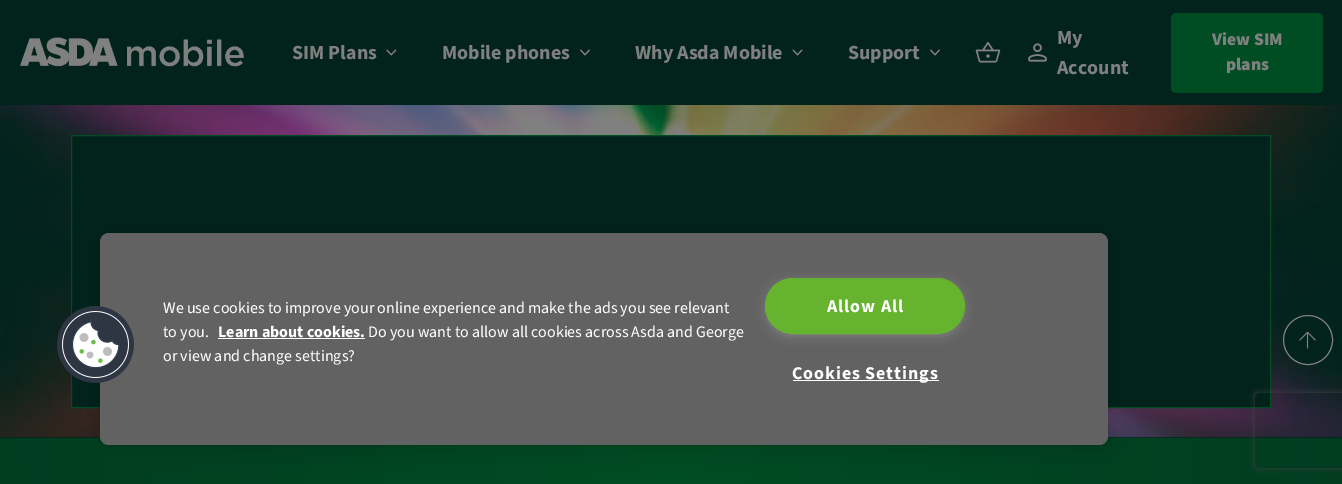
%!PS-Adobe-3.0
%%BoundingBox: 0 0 1342 484
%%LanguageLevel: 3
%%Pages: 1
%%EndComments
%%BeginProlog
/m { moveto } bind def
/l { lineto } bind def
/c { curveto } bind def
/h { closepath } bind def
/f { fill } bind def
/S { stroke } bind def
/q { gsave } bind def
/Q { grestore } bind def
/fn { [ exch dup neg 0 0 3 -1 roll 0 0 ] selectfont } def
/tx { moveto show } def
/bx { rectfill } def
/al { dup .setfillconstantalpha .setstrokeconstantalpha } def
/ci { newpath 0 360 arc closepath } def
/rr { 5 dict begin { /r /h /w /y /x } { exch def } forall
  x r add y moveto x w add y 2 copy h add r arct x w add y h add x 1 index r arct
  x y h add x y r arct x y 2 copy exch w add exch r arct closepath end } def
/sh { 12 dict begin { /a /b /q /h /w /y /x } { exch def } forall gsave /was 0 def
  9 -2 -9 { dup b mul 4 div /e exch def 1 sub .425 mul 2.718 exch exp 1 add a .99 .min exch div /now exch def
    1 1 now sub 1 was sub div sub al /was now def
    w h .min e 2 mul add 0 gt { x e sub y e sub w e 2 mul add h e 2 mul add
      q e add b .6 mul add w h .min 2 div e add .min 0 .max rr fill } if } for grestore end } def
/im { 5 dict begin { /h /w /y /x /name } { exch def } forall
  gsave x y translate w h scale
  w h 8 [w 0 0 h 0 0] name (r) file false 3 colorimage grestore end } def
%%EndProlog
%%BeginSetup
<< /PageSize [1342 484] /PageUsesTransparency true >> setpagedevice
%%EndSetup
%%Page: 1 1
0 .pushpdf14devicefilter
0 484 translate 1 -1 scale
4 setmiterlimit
1 setgray
0 0 1342 484 bx
0.008 0.137 0.11 setrgbcolor
0 0 1342 105 bx
(image0.raw) 20 37 224 30 im
/SourceSans3-Bold 20 fn
0.502 setgray
(SIM Plans) 292 59 tx
(image1.raw) 386 49 11 7 im
(Mobile phones) 442 59 tx
(image2.raw) 580 49 10 7 im
(Why Asda Mobile) 635 59 tx
(image3.raw) 792 49 11 7 im
(Support) 848 59 tx
(image2.raw) 930 49 10 7 im
(image4.raw) 975 42 26 21 im
(image5.raw) 1028 43 19 19 im
(My) 1057 44 tx
(Account) 1057 74 tx
0 0.302 0.137 setrgbcolor
1171 13 152 80 5 rr f
/SourceSans3-Black 17.5 fn
0.502 setgray
(View SIM) 1212 45 tx
(plans) 1226 70 tx
0.008 0.137 0.11 setrgbcolor
0 437 1342 1 bx
(image6.raw) 0 105 1342 333 im
71.5 135.5 m 1270.5 135.5 l 1270.5 407.5 l 71.5 407.5 l h q f Q
0 0.302 0.137 setrgbcolor
S
q 0 438 m 1342 438 l 1342 484 l 0 484 l h clip newpath 671 438 translate 1747 1747 scale
<< /ShadingType 3 /ColorSpace /DeviceRGB /Coords [0 0 0 0 0 1] /Extend [true true] /Function << /FunctionType 2 /Domain [0 1] /C0 [0 0.302 0.137] /C1 [0.008 0.137 0.11] /N 1 >> >> shfill Q
0.008 0.137 0.11 setrgbcolor
1308 340 24.5 ci q f Q
0.502 setgray
S
(image7.raw) 1299 331 17 18 im
0 setgray
100 233 1008 212 9 11 0.2 sh
0.384 setgray
100 233 1008 212 9 rr f
(image8.raw) 57 306 77 77 im
/SourceSans3-Regular 16 fn
1 setgray
(We use cookies to improve your online experience and make the ads you see relevant) 163 313 tx
(to you.) 163 337 tx
/SourceSans3-Bold 16 fn
(Learn about cookies.) 218 337 tx
218 338 147 1 bx
/SourceSans3-Regular 16 fn
(Do you want to allow all cookies across Asda and George) 368 337 tx
(or view and change settings?) 163 361 tx
0.6 setgray
769 284 192 49 24.5 6 1 sh
0.396 0.702 0.18 setrgbcolor
765.5 278.5 199 55 27.5 rr q f Q
S
/SourceSans3-Bold 18 fn
1 setgray
827 312 m 0.9 0 (Allow All) ashow
793 380 146 1 bx
792 379 m 0.9 0 (Cookies Settings) ashow
q
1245 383 m 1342 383 l 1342 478 l 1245 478 l h 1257.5 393 m 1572.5 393 l 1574 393 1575 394 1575 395.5 c 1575 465.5 l 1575 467 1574 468 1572.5 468 c 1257.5 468 l 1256 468 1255 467 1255 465.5 c 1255 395.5 l 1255 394 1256 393 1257.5 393 c h eoclip newpath
0.251 setgray
1255 393 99 75 2.5 3 1 sh
Q
.poppdf14devicefilter showpage
%%EOF
